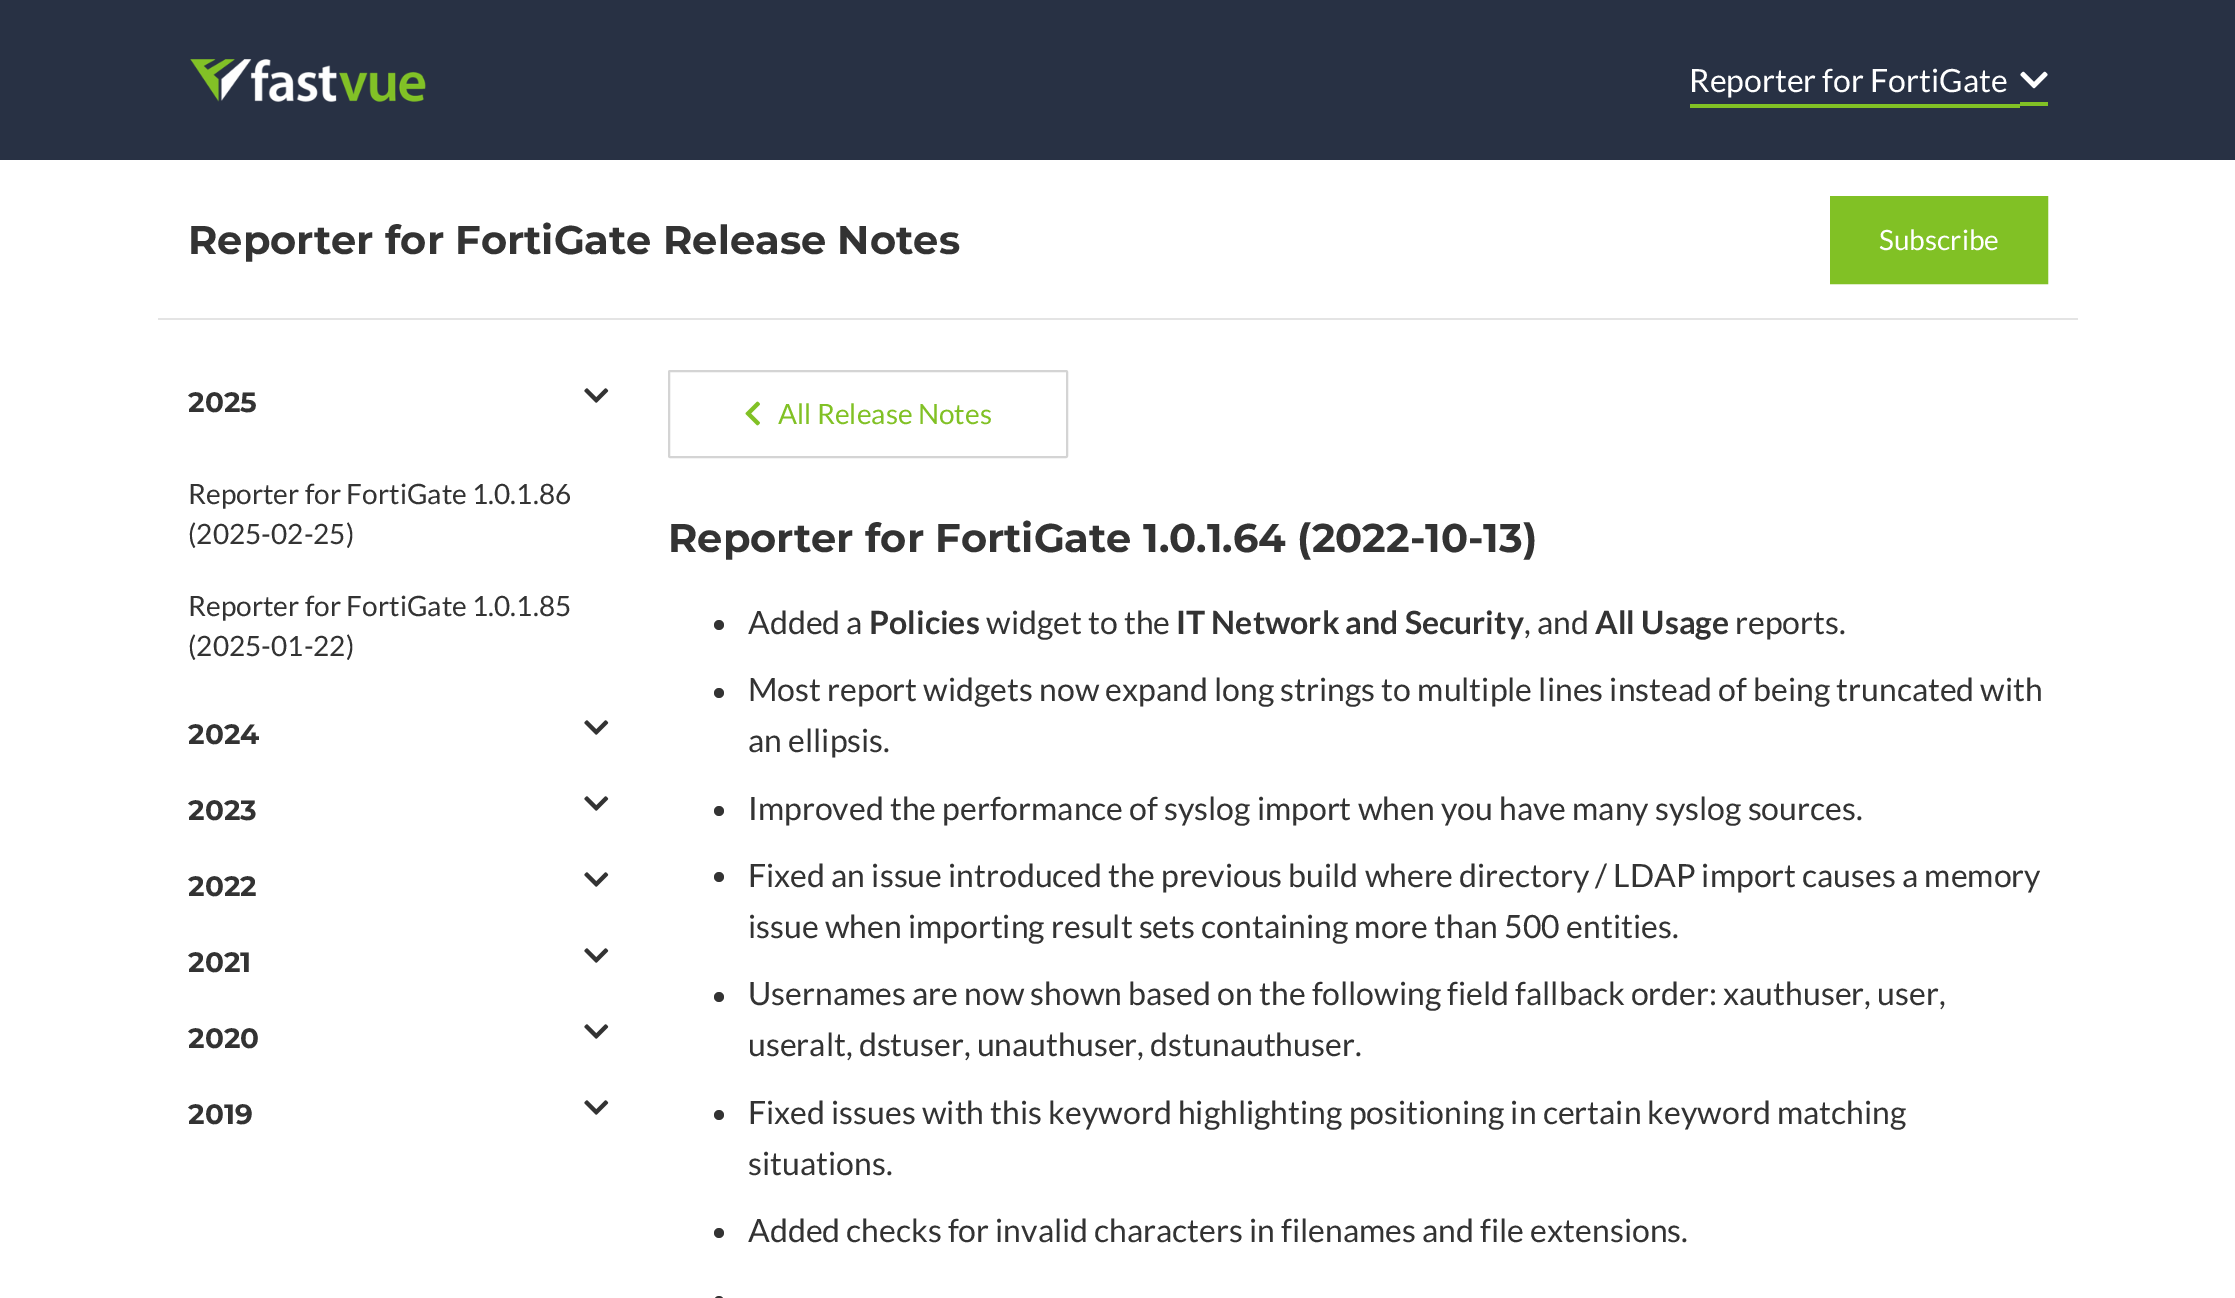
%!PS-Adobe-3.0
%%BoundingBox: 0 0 2235 1298
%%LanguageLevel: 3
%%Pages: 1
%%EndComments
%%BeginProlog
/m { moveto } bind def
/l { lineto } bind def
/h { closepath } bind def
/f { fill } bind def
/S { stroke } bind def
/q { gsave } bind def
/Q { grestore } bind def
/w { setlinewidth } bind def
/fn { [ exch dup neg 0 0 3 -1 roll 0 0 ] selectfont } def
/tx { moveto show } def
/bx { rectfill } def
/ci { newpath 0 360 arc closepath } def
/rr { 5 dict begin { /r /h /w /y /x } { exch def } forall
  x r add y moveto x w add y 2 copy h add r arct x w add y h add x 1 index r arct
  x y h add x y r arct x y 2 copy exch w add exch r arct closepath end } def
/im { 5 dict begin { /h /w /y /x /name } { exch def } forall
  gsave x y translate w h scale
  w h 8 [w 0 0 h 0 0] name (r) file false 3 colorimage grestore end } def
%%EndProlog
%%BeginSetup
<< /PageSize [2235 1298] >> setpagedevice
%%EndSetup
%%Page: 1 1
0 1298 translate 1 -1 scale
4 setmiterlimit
1 setgray
0 0 2235 1298 bx
0.157 0.192 0.267 setrgbcolor
0 0 2235 160 bx
(image0.raw) 190 59 236 43 im
0.506 0.757 0.145 setrgbcolor
1690 104 330 4 bx
2020 102 28 4 bx
/Lato-Regular 32 fn
1 setgray
(Reporter for FortiGate) 1689 92 tx
(image1.raw) 2020 71 28 18 im
0.894 setgray
158 318 1920 2 bx
/Montserrat-Bold 40 fn
0.2 setgray
(Reporter for FortiGate Release Notes) 188 254 tx
0.506 0.757 0.145 setrgbcolor
1832 198 m 2046 198 l 2046 282 l 1832 282 l h q f Q
4 w
S
/Lato-Regular 28 fn
1 setgray
(Subscribe) 1879 250 tx
/Montserrat-Bold 28 fn
0.2 setgray
(2025) 188 412 tx
(image2.raw) 584 388 25 15 im
/Lato-Regular 28 fn
(Reporter for FortiGate 1.0.1.86) 188 504 tx
(\(2025-02-25\)) 188 544 tx
(Reporter for FortiGate 1.0.1.85) 188 616 tx
(\(2025-01-22\)) 188 656 tx
/Montserrat-Bold 28 fn
(2024) 188 744 tx
(image2.raw) 584 720 25 15 im
(2023) 188 820 tx
(image2.raw) 584 796 25 15 im
(2022) 188 896 tx
(image2.raw) 584 872 25 15 im
(2021) 188 972 tx
(image2.raw) 584 948 25 15 im
(2020) 188 1048 tx
(image2.raw) 584 1024 25 15 im
(2019) 188 1124 tx
(image2.raw) 584 1100 25 15 im
0.831 setgray
2 w
669 371 398 86 1 rr S
(image3.raw) 745 401 15 25 im
/Lato-Regular 28 fn
0.506 0.757 0.145 setrgbcolor
(All Release Notes) 778 424 tx
/Montserrat-Bold 40 fn
0.2 setgray
(Reporter for FortiGate 1.0.1.64 \(2022-10-13\)) 668 552 tx
719 625 5 ci f
/Lato-Regular 32 fn
(Added a) 748 634 tx
/Lato-Bold 32 fn
(Policies) 869 634 tx
/Lato-Regular 32 fn
(widget to the) 986 634 tx
/Lato-Bold 32 fn
(IT Network and Security) 1176 634 tx
/Lato-Regular 32 fn
(, and) 1524 634 tx
/Lato-Bold 32 fn
(All Usage) 1595 634 tx
/Lato-Regular 32 fn
(reports.) 1735 634 tx
719 693 5 ci f
(Most report widgets now expand long strings to multiple lines instead of being truncated with) 748 701 tx
(an ellipsis.) 748 752 tx
719 811 5 ci f
(Improved the performance of syslog import when you have many syslog sources.) 748 820 tx
719 877 5 ci f
(Fixed an issue introduced the previous build where directory / LDAP import causes a memory) 748 887 tx
(issue when importing result sets containing more than 500 entities.) 748 938 tx
719 997 5 ci f
(Usernames are now shown based on the following field fallback order: xauthuser, user,) 748 1005 tx
(useralt, dstuser, unauthuser, dstunauthuser.) 748 1056 tx
719 1115 5 ci f
(Fixed issues with this keyword highlighting positioning in certain keyword matching) 748 1124 tx
(situations.) 748 1175 tx
719 1233 5 ci f
(Added checks for invalid characters in filenames and file extensions.) 748 1242 tx
714 1296 10 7 5 rr f
showpage
%%EOF
